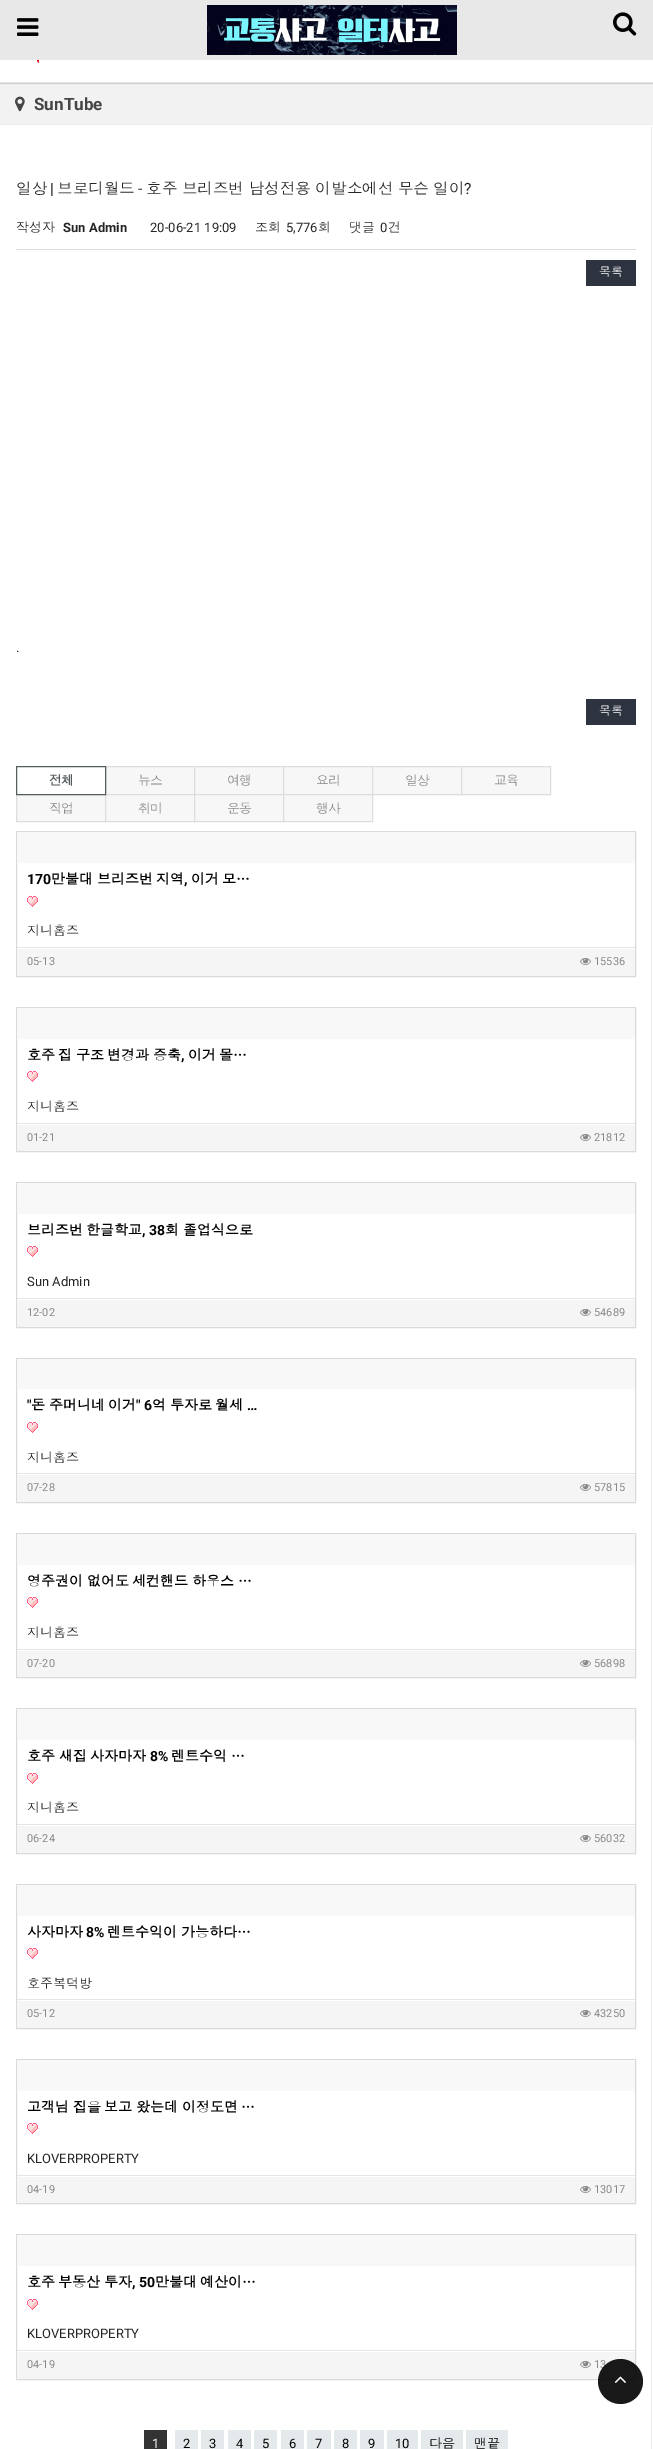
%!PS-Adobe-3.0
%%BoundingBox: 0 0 653 2449
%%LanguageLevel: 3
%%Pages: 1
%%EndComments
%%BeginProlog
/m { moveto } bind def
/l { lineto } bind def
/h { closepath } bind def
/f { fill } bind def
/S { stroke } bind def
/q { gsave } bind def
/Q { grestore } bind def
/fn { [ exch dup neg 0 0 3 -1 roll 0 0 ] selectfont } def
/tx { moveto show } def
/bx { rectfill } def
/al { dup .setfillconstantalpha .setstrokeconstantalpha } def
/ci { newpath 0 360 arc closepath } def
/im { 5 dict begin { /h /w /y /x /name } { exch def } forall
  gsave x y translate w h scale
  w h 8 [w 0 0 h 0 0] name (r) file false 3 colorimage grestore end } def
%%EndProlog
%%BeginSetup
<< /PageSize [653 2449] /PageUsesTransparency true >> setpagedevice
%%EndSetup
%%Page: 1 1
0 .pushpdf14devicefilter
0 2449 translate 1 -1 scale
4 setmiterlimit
1 setgray
0 0 653 2449 bx
0.91 setgray
0 0 653 60 bx
(image0.raw) 17 18 22 18 im
(image1.raw) 207 5 250 50 im
(image2.raw) 613 12 24 24 im
(image3.raw) 15 60 282 3 im
0.898 setgray
0 82 653 1 bx
0.816 setgray
0 83 653 1 bx
0.949 setgray
0 85 653 39 bx
0.929 setgray
0 84 653 1 bx
0 124 653 1 bx
(image4.raw) 15 96 10 16 im
/Roboto-Bold 17 fn
0.271 setgray
(SunTube) 34 110 tx
0.929 setgray
651 126 1 2323 bx
/Dotum-Regular 15.6 fn
0.145 setgray
(일상) 16 194 tx
/Roboto-Regular 15.6 fn
(|) 50 194 tx
/Dotum-Regular 15.6 fn
(브로디월드) 57 194 tx
/Roboto-Regular 15.6 fn
(-) 138 194 tx
/Dotum-Regular 15.6 fn
146 194 m -0.75 0 32 (호주 브리즈번 남성전용 이발소에선 무슨 일이) widthshow
/Roboto-Regular 15.6 fn
(?) 464 194 tx
0.867 setgray
16 249 620 1 bx
/Dotum-Regular 13 fn
0.145 setgray
(작성자) 16 232 tx
/Roboto-Bold 13 fn
(Sun Admin) 63 232 tx
/Roboto-Regular 13 fn
(20-06-21 19:09) 150 232 tx
/Dotum-Regular 13 fn
(조회) 255 232 tx
/Roboto-Regular 13 fn
(5,776) 286 232 tx
/Dotum-Regular 13 fn
(회) 318 232 tx
(댓글) 349 232 tx
/Roboto-Regular 13 fn
(0) 380 232 tx
/Dotum-Regular 13 fn
(건) 388 232 tx
0.18 0.2 0.251 setrgbcolor
586 260 50 26 bx
/Dotum-Regular 12 fn
1 setgray
(목록) 599 276 tx
/Roboto-Regular 13 fn
0.145 setgray
(.) 16 652 tx
0.18 0.2 0.251 setrgbcolor
586 699 50 26 bx
/Dotum-Regular 12 fn
1 setgray
(목록) 599 715 tx
0.969 setgray
105.5 766.5 m 194.5 766.5 l 194.5 794.5 l 105.5 794.5 l h q f Q
0.867 setgray
S
0.969 setgray
16.5 794.5 m 105.5 794.5 l 105.5 821.5 l 16.5 821.5 l h q f Q
0.867 setgray
S
0.969 setgray
194.5 766.5 m 283.5 766.5 l 283.5 794.5 l 194.5 794.5 l h q f Q
0.867 setgray
S
0.969 setgray
105.5 794.5 m 194.5 794.5 l 194.5 821.5 l 105.5 821.5 l h q f Q
0.867 setgray
S
0.337 0.369 0.376 setrgbcolor
16.5 766.5 89 28 rectstroke
/Dotum-Bold 13 fn
49 785 m -1 0 (전체) ashow
/Dotum-Regular 13 fn
0.533 setgray
138 785 m -1 0 (뉴스) ashow
227 785 m -1 0 (여행) ashow
0.969 setgray
283.5 766.5 m 372.5 766.5 l 372.5 794.5 l 283.5 794.5 l h q f Q
0.867 setgray
S
0.533 setgray
316 785 m -1 0 (요리) ashow
0.969 setgray
372.5 766.5 m 461.5 766.5 l 461.5 794.5 l 372.5 794.5 l h q f Q
0.867 setgray
S
0.533 setgray
405 785 m -1 0 (일상) ashow
0.969 setgray
461.5 766.5 m 550.5 766.5 l 550.5 794.5 l 461.5 794.5 l h q f Q
0.867 setgray
S
0.533 setgray
494 785 m -1 0 (교육) ashow
49 813 m -1 0 (직업) ashow
138 813 m -1 0 (취미) ashow
0.969 setgray
194.5 794.5 m 283.5 794.5 l 283.5 821.5 l 194.5 821.5 l h q f Q
0.867 setgray
S
0.533 setgray
227 813 m -1 0 (운동) ashow
0.969 setgray
283.5 794.5 m 372.5 794.5 l 372.5 821.5 l 283.5 821.5 l h q f Q
0.867 setgray
S
0.533 setgray
316 813 m -1 0 (행사) ashow
0.855 setgray
16.5 831.5 619 145 rectstroke
0.973 setgray
17 832 618 31 bx
/Roboto-Bold 14 fn
0 setgray
(170) 27 884 tx
/Dotum-Bold 14 fn
(만불대) 51 884 tx
(브리즈번) 97 884 tx
(지역) 156 884 tx
(이거) 191 884 tx
(모…) 222 884 tx
/Roboto-Bold 14 fn
(,) 184 884 tx
(image5.raw) 27 896 11 11 im
/Dotum-Regular 13 fn
0.145 setgray
(지니홈즈) 27 935 tx
0.961 setgray
17 949 618 27 bx
0.898 setgray
17 947 618 1 bx
/Roboto-Regular 11 fn
0.533 setgray
(05-13) 27 965 tx
(image6.raw) 580 958 11 7 im
(15536) 594 965 tx
0.855 setgray
16.5 1007.5 619 144 rectstroke
0.973 setgray
17 1008 618 31 bx
/Dotum-Bold 14 fn
0 setgray
(호주) 27 1060 tx
(집) 58 1060 tx
(구조) 76 1060 tx
(변경과) 107 1060 tx
(증축) 153 1060 tx
/Roboto-Bold 14 fn
(,) 181 1060 tx
/Dotum-Bold 14 fn
(이거) 188 1060 tx
(몰…) 219 1060 tx
(image5.raw) 27 1071 11 11 im
/Dotum-Regular 13 fn
0.145 setgray
(지니홈즈) 27 1111 tx
0.961 setgray
17 1125 618 26 bx
0.898 setgray
17 1123 618 1 bx
/Roboto-Regular 11 fn
0.533 setgray
(01-21) 27 1141 tx
(image6.raw) 580 1134 11 7 im
(21812) 594 1141 tx
0.855 setgray
16.5 1182.5 619 145 rectstroke
0.973 setgray
17 1183 618 31 bx
/Dotum-Bold 14 fn
0 setgray
(브리즈번) 27 1235 tx
(한글학교) 86 1235 tx
/Roboto-Bold 14 fn
(, 38) 142 1235 tx
/Dotum-Bold 14 fn
(회) 165 1235 tx
(졸업식으로) 183 1235 tx
(image5.raw) 27 1246 11 11 im
/Roboto-Regular 13 fn
0.145 setgray
(Sun Admin) 27 1286 tx
0.961 setgray
17 1300 618 27 bx
0.898 setgray
17 1298 618 1 bx
/Roboto-Regular 11 fn
0.533 setgray
(12-02) 27 1316 tx
(image6.raw) 580 1309 11 7 im
(54689) 594 1316 tx
0.855 setgray
16.5 1358.5 619 144 rectstroke
0.973 setgray
17 1359 618 30 bx
/Roboto-Bold 14 fn
0 setgray
(") 27 1410 tx
/Dotum-Bold 14 fn
(돈) 31 1410 tx
(주머니네) 49 1410 tx
(이거) 108 1410 tx
/Roboto-Bold 14 fn
(" 6) 136 1410 tx
/Dotum-Bold 14 fn
(억) 152 1410 tx
(투자로) 170 1410 tx
(월세) 215 1410 tx
/Roboto-Bold 14 fn
(…) 247 1410 tx
(image5.raw) 27 1422 11 11 im
/Dotum-Regular 13 fn
0.145 setgray
(지니홈즈) 27 1462 tx
0.961 setgray
17 1475 618 27 bx
0.898 setgray
17 1473 618 1 bx
/Roboto-Regular 11 fn
0.533 setgray
(07-28) 27 1491 tx
(image6.raw) 580 1484 11 7 im
(57815) 594 1491 tx
0.855 setgray
16.5 1533.5 619 144 rectstroke
0.973 setgray
17 1534 618 31 bx
/Dotum-Bold 14 fn
0 setgray
27 1586 m -1 0 32 (영주권이 없어도 세컨핸드 하우스 …) widthshow
(image5.raw) 27 1597 11 11 im
/Dotum-Regular 13 fn
0.145 setgray
(지니홈즈) 27 1637 tx
0.961 setgray
17 1651 618 26 bx
0.898 setgray
17 1649 618 1 bx
/Roboto-Regular 11 fn
0.533 setgray
(07-20) 27 1667 tx
(image6.raw) 580 1660 11 7 im
(56898) 594 1667 tx
0.855 setgray
16.5 1708.5 619 145 rectstroke
0.973 setgray
17 1709 618 31 bx
/Dotum-Bold 14 fn
0 setgray
27 1761 m -1 0 32 (호주 새집 사자마자) widthshow
/Roboto-Bold 14 fn
(8%) 150 1761 tx
/Dotum-Bold 14 fn
171 1761 m -1 0 32 (렌트수익 …) widthshow
(image5.raw) 27 1773 11 11 im
/Dotum-Regular 13 fn
0.145 setgray
(지니홈즈) 27 1812 tx
0.961 setgray
17 1826 618 27 bx
0.898 setgray
17 1824 618 1 bx
/Roboto-Regular 11 fn
0.533 setgray
(06-24) 27 1842 tx
(image6.raw) 580 1835 11 7 im
(56032) 594 1842 tx
0.855 setgray
16.5 1884.5 619 144 rectstroke
0.973 setgray
17 1885 618 31 bx
/Dotum-Bold 14 fn
0 setgray
(사자마자) 27 1937 tx
/Roboto-Bold 14 fn
(8%) 86 1937 tx
/Dotum-Bold 14 fn
107 1937 m -1 0 32 (렌트수익이 가능하다…) widthshow
(image5.raw) 27 1948 11 11 im
/Dotum-Regular 13 fn
0.145 setgray
(호주복덕방) 27 1988 tx
0.961 setgray
17 2001 618 27 bx
0.898 setgray
17 1999 618 1 bx
/Roboto-Regular 11 fn
0.533 setgray
(05-12) 27 2017 tx
(image6.raw) 580 2010 11 7 im
(43250) 594 2017 tx
0.855 setgray
16.5 2059.5 619 144 rectstroke
0.973 setgray
17 2060 618 31 bx
/Dotum-Bold 14 fn
0 setgray
27 2112 m -1 0 32 (고객님 집을 보고 왔는데 이정도면 …) widthshow
(image5.raw) 27 2123 11 11 im
/Roboto-Regular 13 fn
0.145 setgray
(KLOVERPROPERTY) 27 2163 tx
0.961 setgray
17 2177 618 26 bx
0.898 setgray
17 2175 618 1 bx
/Roboto-Regular 11 fn
0.533 setgray
(04-19) 27 2193 tx
(image6.raw) 580 2186 11 7 im
(13017) 594 2193 tx
0.855 setgray
16.5 2234.5 619 145 rectstroke
0.973 setgray
17 2235 618 31 bx
/Dotum-Bold 14 fn
0 setgray
(호주) 27 2287 tx
(부동산) 58 2287 tx
(투자) 104 2287 tx
/Roboto-Bold 14 fn
(, 50) 132 2287 tx
/Dotum-Bold 14 fn
(만불대) 155 2287 tx
(예산이…) 200 2287 tx
(image5.raw) 27 2299 11 11 im
/Roboto-Regular 13 fn
0.145 setgray
(KLOVERPROPERTY) 27 2338 tx
0.961 setgray
17 2352 618 27 bx
0.898 setgray
17 2350 618 1 bx
/Roboto-Regular 11 fn
0.533 setgray
(04-19) 27 2368 tx
(image6.raw) 580 2361 11 7 im
(13) 594 2368 tx
0.2 setgray
144 2430 23 19 bx
/Roboto-Regular 13 fn
1 setgray
(1) 152 2448 tx
0.894 0.918 0.925 setrgbcolor
175 2430 23 19 bx
0 setgray
(2) 183 2448 tx
0.894 0.918 0.925 setrgbcolor
201 2430 23 19 bx
0 setgray
(3) 209 2448 tx
0.894 0.918 0.925 setrgbcolor
228 2430 23 19 bx
0 setgray
(4) 236 2448 tx
0.894 0.918 0.925 setrgbcolor
254 2430 23 19 bx
0 setgray
(5) 262 2448 tx
0.894 0.918 0.925 setrgbcolor
281 2430 23 19 bx
0 setgray
(6) 289 2448 tx
0.894 0.918 0.925 setrgbcolor
307 2430 24 19 bx
0 setgray
(7) 315 2448 tx
0.894 0.918 0.925 setrgbcolor
334 2430 23 19 bx
0 setgray
(8) 342 2448 tx
0.894 0.918 0.925 setrgbcolor
360 2430 24 19 bx
0 setgray
(9) 368 2448 tx
0.894 0.918 0.925 setrgbcolor
387 2430 31 19 bx
0 setgray
(10) 395 2448 tx
0.894 0.918 0.925 setrgbcolor
421 2430 42 19 bx
/Dotum-Regular 13 fn
0 setgray
(다음) 429 2448 tx
0.894 0.918 0.925 setrgbcolor
466 2430 42 19 bx
0 setgray
(맨끝) 474 2448 tx
0.9 al
620.5 2381.5 22.5 ci f
1 al
(image7.raw) 614 2376 12 7 im
.poppdf14devicefilter showpage
%%EOF
